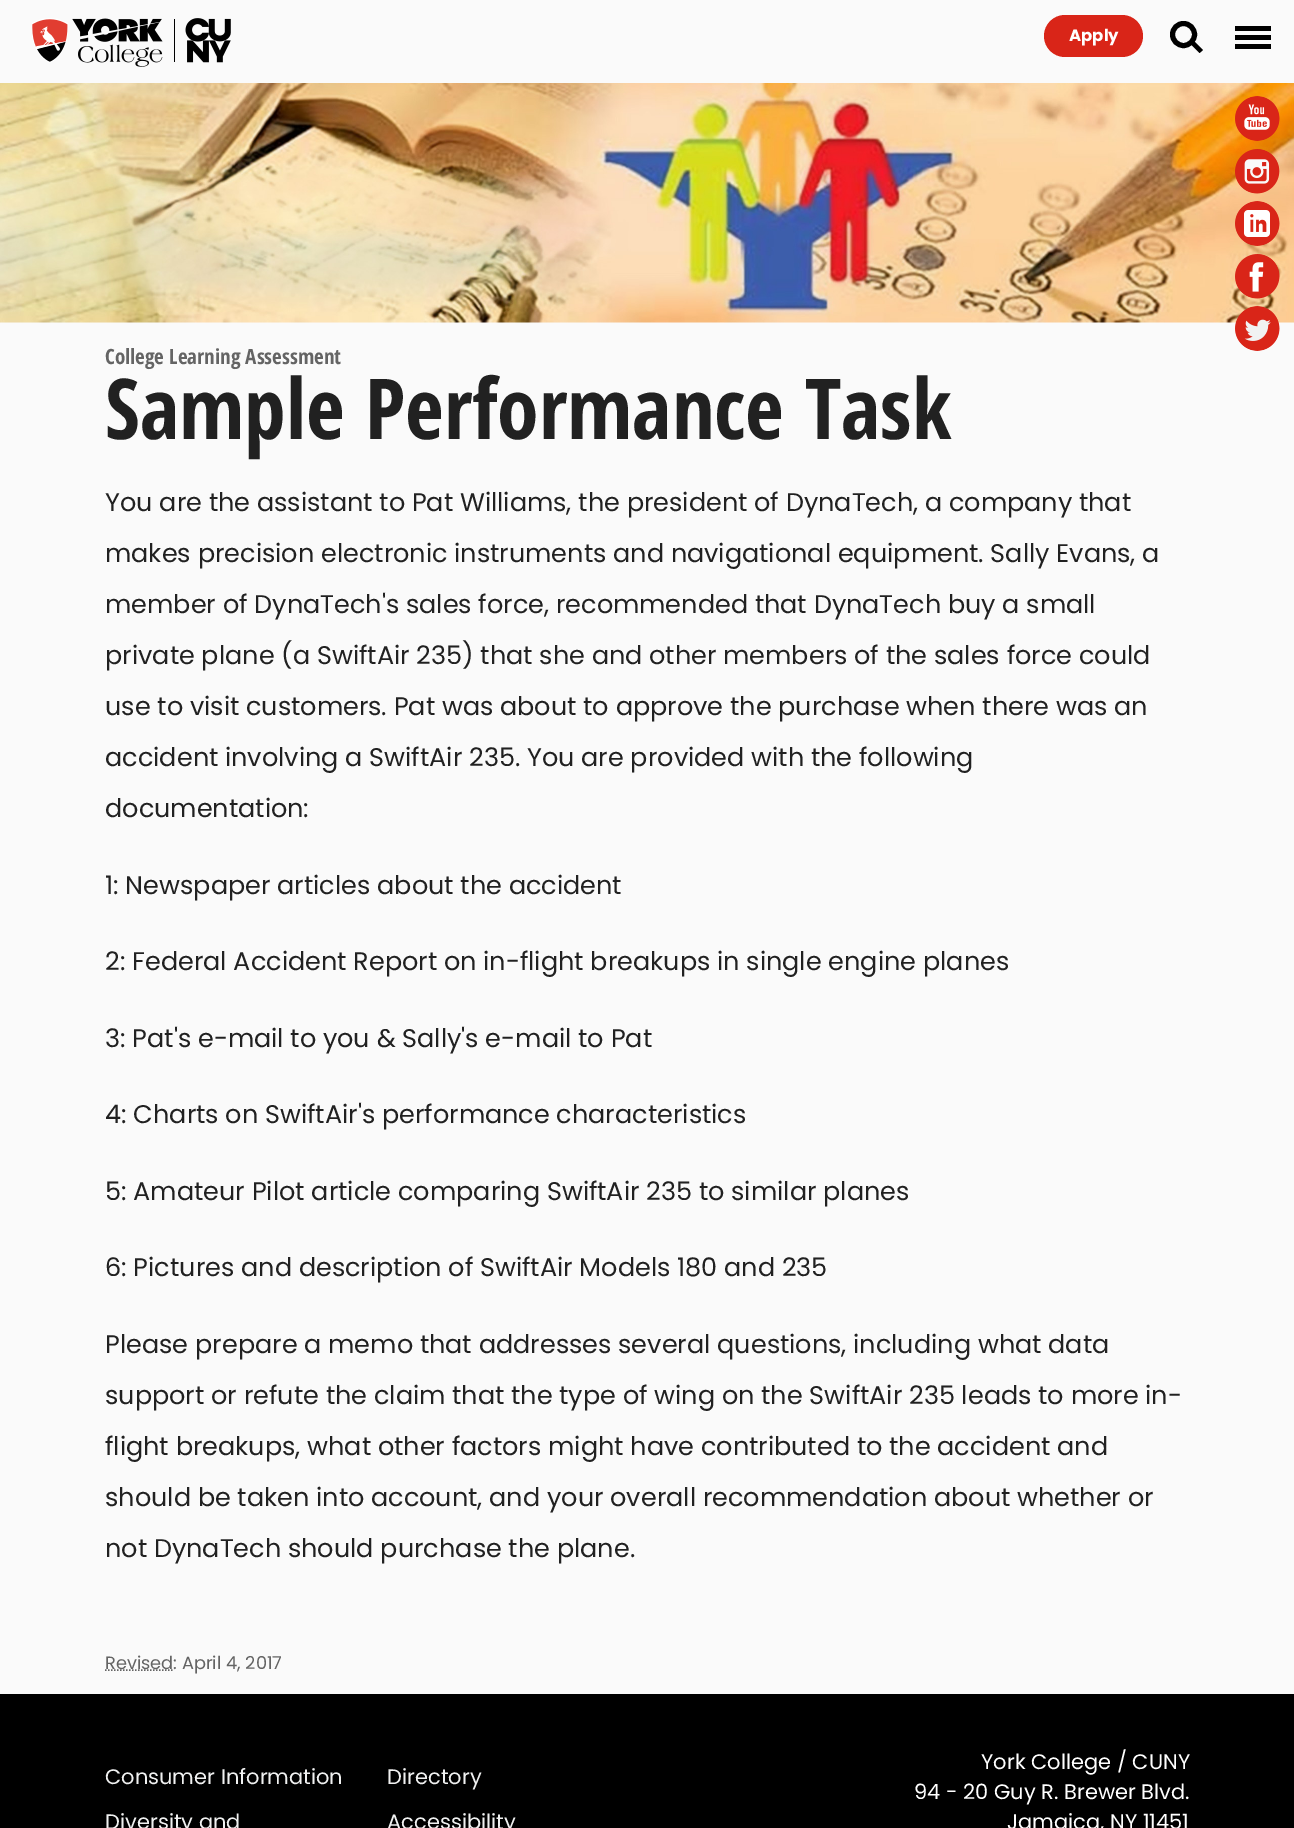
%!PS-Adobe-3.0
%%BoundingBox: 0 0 1294 1828
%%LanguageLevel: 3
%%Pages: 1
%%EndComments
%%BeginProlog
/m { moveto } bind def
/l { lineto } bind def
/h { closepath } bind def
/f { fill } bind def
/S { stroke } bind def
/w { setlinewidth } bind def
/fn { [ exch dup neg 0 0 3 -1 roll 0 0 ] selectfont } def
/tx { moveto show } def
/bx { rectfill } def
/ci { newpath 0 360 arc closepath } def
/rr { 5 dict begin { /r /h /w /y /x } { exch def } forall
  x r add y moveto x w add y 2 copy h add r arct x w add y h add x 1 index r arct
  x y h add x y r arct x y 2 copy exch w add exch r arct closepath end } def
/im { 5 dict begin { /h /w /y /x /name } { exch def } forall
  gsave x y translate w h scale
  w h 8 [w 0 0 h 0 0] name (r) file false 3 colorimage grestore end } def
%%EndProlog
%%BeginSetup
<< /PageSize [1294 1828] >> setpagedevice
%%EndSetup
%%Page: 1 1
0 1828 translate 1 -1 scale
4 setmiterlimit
0.98 setgray
0 0 1294 1828 bx
(image0.raw) 32 18 199 49 im
0.851 0.145 0.094 setrgbcolor
1044 15 99 42 21 rr f
/Poppins-Bold 16.5 fn
1 setgray
(Apply) 1069 41 tx
0 setgray
5 w
1183.5 34.5 11 ci S
1194.5 41.5 m 1203 50 l 1199.5 53 l 1191 44.5 l h f
1235 35 36 5 bx
1235 26 36 5 bx
1235 44 36 5 bx
(image6.raw) 0 83 1294 240 im
(image1.raw) 1235 96 45 45 im
(image2.raw) 1235 149 45 45 im
(image3.raw) 1235 201 45 45 im
(image4.raw) 1235 254 45 45 im
(image5.raw) 1235 306 45 45 im
/OpenSansCondensed-Bold 21 fn
0.392 setgray
(College Learning Assessment) 105 364 tx
/OpenSansCondensed-Bold 84 fn
0.129 setgray
(Sample Performance Task) 105 439 tx
/Poppins-Regular 25.5 fn
(You are the assistant to Pat Williams, the president of DynaTech, a company that) 105 511 tx
(makes precision electronic instruments and navigational equipment. Sally Evans, a) 105 562 tx
(member of DynaTech's sales force, recommended that DynaTech buy a small) 105 613 tx
(private plane \(a SwiftAir 235\) that she and other members of the sales force could) 105 664 tx
(use to visit customers. Pat was about to approve the purchase when there was an) 105 715 tx
(accident involving a SwiftAir 235. You are provided with the following) 105 766 tx
(documentation:) 105 817 tx
(1: Newspaper articles about the accident) 105 894 tx
(2: Federal Accident Report on in-flight breakups in single engine planes) 105 970 tx
(3: Pat's e-mail to you & Sally's e-mail to Pat) 105 1047 tx
(4: Charts on SwiftAir's performance characteristics) 105 1123 tx
(5: Amateur Pilot article comparing SwiftAir 235 to similar planes) 105 1200 tx
(6: Pictures and description of SwiftAir Models 180 and 235) 105 1276 tx
(Please prepare a memo that addresses several questions, including what data) 105 1353 tx
(support or refute the claim that the type of wing on the SwiftAir 235 leads to more in-) 105 1404 tx
(flight breakups, what other factors might have contributed to the accident and) 105 1455 tx
(should be taken into account, and your overall recommendation about whether or) 105 1506 tx
(not DynaTech should purchase the plane.) 105 1557 tx
0.392 setgray
1.5 w
[1.5 1.5] 0 setdash
105 1670 m 173.5 1670 l S
/Poppins-Regular 17.75 fn
(Revised: April 4, 2017) 105 1669 tx
0 setgray
0 1694 1294 134 bx
/Poppins-Regular 21 fn
0.941 0.945 0.945 setrgbcolor
(Consumer Information) 105 1784 tx
(Diversity and) 105 1829 tx
(Directory) 387 1784 tx
(Accessibility) 387 1829 tx
1 setgray
(York College / CUNY) 981 1769 tx
(94 - 20 Guy R. Brewer Blvd.) 914 1799 tx
(Jamaica, NY 11451) 1007 1829 tx
showpage
%%EOF
